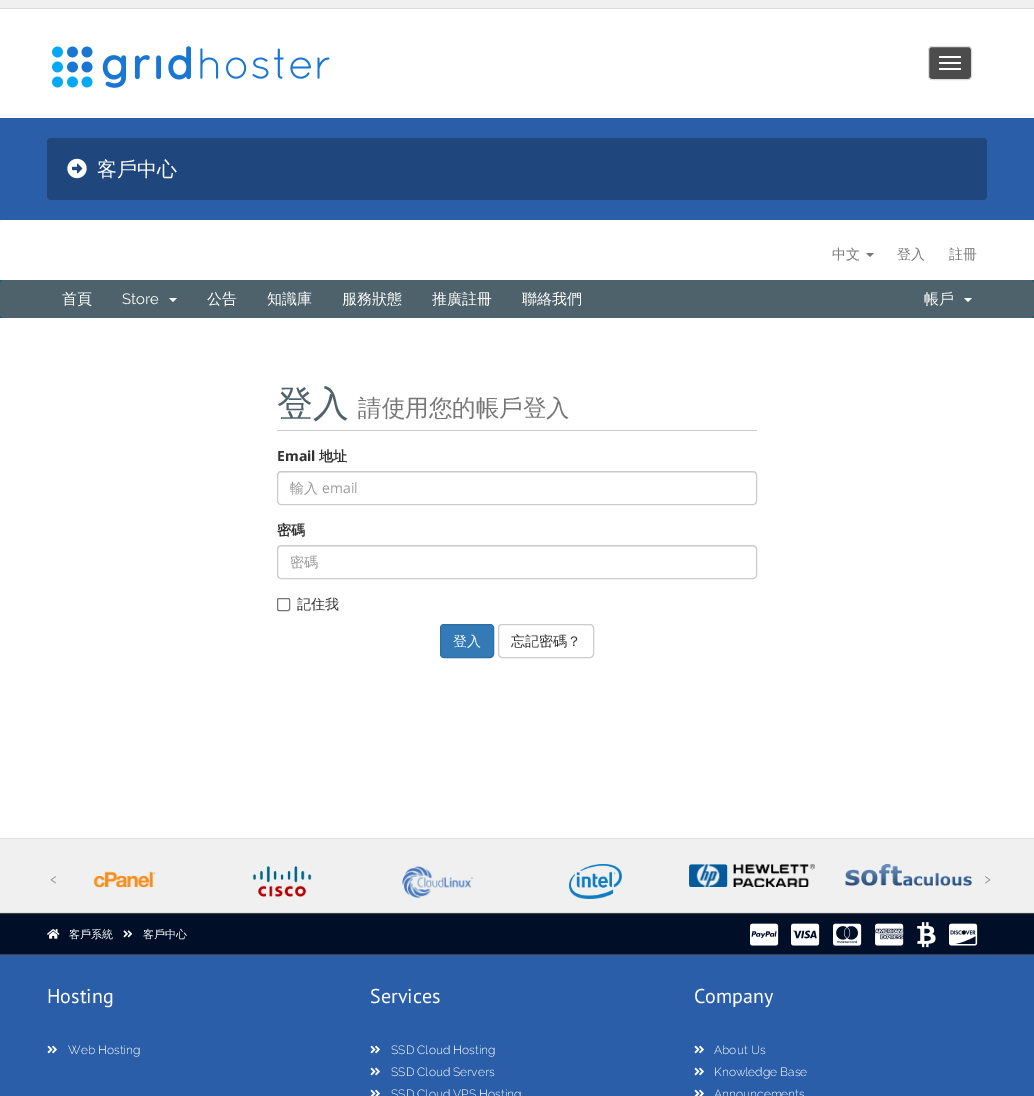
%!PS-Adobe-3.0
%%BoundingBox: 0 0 1034 1096
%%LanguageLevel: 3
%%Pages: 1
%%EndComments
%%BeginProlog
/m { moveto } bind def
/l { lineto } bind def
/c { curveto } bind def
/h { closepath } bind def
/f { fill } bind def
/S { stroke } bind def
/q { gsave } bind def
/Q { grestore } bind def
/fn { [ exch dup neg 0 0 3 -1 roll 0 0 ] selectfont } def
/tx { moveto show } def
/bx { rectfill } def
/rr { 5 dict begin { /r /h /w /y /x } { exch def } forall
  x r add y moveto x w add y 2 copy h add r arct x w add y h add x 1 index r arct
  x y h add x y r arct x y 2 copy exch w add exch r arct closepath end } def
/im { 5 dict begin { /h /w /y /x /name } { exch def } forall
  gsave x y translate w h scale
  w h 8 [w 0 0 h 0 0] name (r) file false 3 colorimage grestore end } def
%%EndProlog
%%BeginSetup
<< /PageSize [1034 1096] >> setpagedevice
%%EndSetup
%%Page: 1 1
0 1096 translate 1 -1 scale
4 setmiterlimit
0.973 setgray
0 0 1034 1096 bx
0.941 setgray
0 0 1034 8 bx
1 setgray
0 9 1034 109 bx
0.859 setgray
0 8 1034 1 bx
(image0.raw) 52 46 278 42 im
0.298 setgray
928.5 46.5 43 33 3.5 rr q f Q
0.867 setgray
S
1 setgray
939 56 22 2 1 rr f
939 62 22 2 1 rr f
939 68 22 2 1 rr f
0.165 0.369 0.663 setrgbcolor
0 118 1034 102 bx
0.122 0.275 0.49 setrgbcolor
47 138 940 62 4 rr f
(image1.raw) 67 158 20 21 im
/WenQuanYiZenHei-Medium 20 fn
1 setgray
(客戶中心) 97 176 tx
5 220 m 1029 220 l 1032 220 1034 222 1034 225 c 1034 280 l 0 280 l 0 225 l 0 222 2 220 5 220 c h f
/WenQuanYiZenHei-Medium 14 fn
0.467 setgray
(中文) 832 259 tx
866 253 m 874 253 l 870 257 l h f
(登入) 897 259 tx
(註冊) 949 259 tx
0 0.4 0.529 setrgbcolor
0 280 1034 38 bx
0.302 0.384 0.42 setrgbcolor
0 280 1034 38 4 rr f
/WenQuanYiZenHei-Medium 15 fn
1 setgray
(首頁) 62 304 tx
/Raleway-Regular 15 fn
(Store) 122 304 tx
169 298 m 177 298 l 173 302 l h f
/WenQuanYiZenHei-Medium 15 fn
(公告) 207 304 tx
(知識庫) 267 304 tx
(服務狀態) 342 304 tx
(推廣註冊) 432 304 tx
(聯絡我們) 522 304 tx
(帳戶) 924 304 tx
964 298 m 972 298 l 968 302 l h f
0 318 1034 520 bx
0.8 setgray
277 430 480 1 bx
/WenQuanYiZenHei-Medium 36 fn
0.306 0.384 0.42 setrgbcolor
(登入) 277 416 tx
/WenQuanYiZenHei-Medium 23.5 fn
0.467 setgray
(請使用您的帳戶登入) 358 416 tx
/OpenSans-Bold 14 fn
0.2 setgray
(Email) 277 461 tx
/WenQuanYiZenHei-Bold 14 fn
(地址) 319 461 tx
0.925 setgray
281 473 m 753 473 l 755 473 756 474 756 476 c 756 474 l 754 472 l 280 472 l 278 472 278 474 278 476 c 278 474 279 473 281 473 c h f
0.8 setgray
277.5 471.5 479 33 3.5 rr S
/WenQuanYiZenHei-Medium 14 fn
0.6 setgray
(輸入) 290 493 tx
/OpenSans-Regular 14 fn
(email) 322 493 tx
/WenQuanYiZenHei-Bold 14 fn
0.2 setgray
(密碼) 277 535 tx
0.925 setgray
281 547 m 753 547 l 755 547 756 548 756 550 c 756 548 756 546 754 546 c 280 546 l 278 548 l 278 550 l 278 548 279 547 281 547 c h f
0.8 setgray
277.5 545.5 479 33 3.5 rr S
/WenQuanYiZenHei-Medium 14 fn
0.6 setgray
(密碼) 290 567 tx
0.463 setgray
277.5 598.5 12 12 1.5 rr S
0.2 setgray
(記住我) 297 609 tx
0.2 0.478 0.718 setrgbcolor
440.5 624.5 53 33 3.5 rr q f Q
0.18 0.427 0.643 setrgbcolor
S
1 setgray
(登入) 453 646 tx
0.8 setgray
498.5 624.5 95 33 3.5 rr S
0.2 setgray
(忘記密碼？) 511 646 tx
0.941 setgray
0 839 1034 73 bx
0.886 setgray
0 838 1034 1 bx
0 912 1034 1 bx
/Raleway-Regular 20 fn
0.573 setgray
(‹) 50 885 tx
(image2.raw) 93 871 63 17 im
(image3.raw) 252 866 60 31 im
(image4.raw) 402 866 71 33 im
(image5.raw) 569 864 53 35 im
(image6.raw) 689 864 126 23 im
(image7.raw) 845 864 127 22 im
(›) 984 885 tx
0.004 0.055 0.157 setrgbcolor
0 914 1034 40 bx
0.255 0.251 0.251 setrgbcolor
0 913 1034 1 bx
(image8.raw) 47 929 13 10 im
/WenQuanYiZenHei-Medium 11 fn
1 setgray
(客戶系統) 69 938 tx
(image9.raw) 123 930 9 8 im
(客戶中心) 143 938 tx
(image10.raw) 750 923 29 23 im
(image11.raw) 791 923 29 23 im
(image12.raw) 833 923 29 23 im
(image13.raw) 875 923 29 23 im
(image14.raw) 917 922 19 26 im
(image15.raw) 949 923 29 23 im
0.255 0.251 0.251 setrgbcolor
0 954 1034 1 bx
0.165 0.369 0.663 setrgbcolor
0 955 1034 141 bx
/PTSans-Regular 20 fn
1 setgray
(Hosting) 47 1003 tx
(image16.raw) 47 1045 10 9 im
/Raleway-Light 12 fn
(Web Hosting) 68 1054 tx
/PTSans-Regular 20 fn
(Services) 370 1003 tx
(image16.raw) 370 1045 10 9 im
/Raleway-Light 12 fn
(SSD Cloud Hosting) 391 1054 tx
(image16.raw) 370 1067 10 9 im
(SSD Cloud Servers) 391 1076 tx
(image17.raw) 370 1089 10 7 im
(SSD Cloud VPS Hosting) 391 1098 tx
/PTSans-Regular 20 fn
(Company) 694 1003 tx
(image16.raw) 694 1045 10 9 im
/Raleway-Light 12 fn
(About Us) 714 1054 tx
(image16.raw) 694 1067 10 9 im
(Knowledge Base) 714 1076 tx
(image17.raw) 694 1089 10 7 im
(Announcements) 714 1098 tx
showpage
%%EOF
